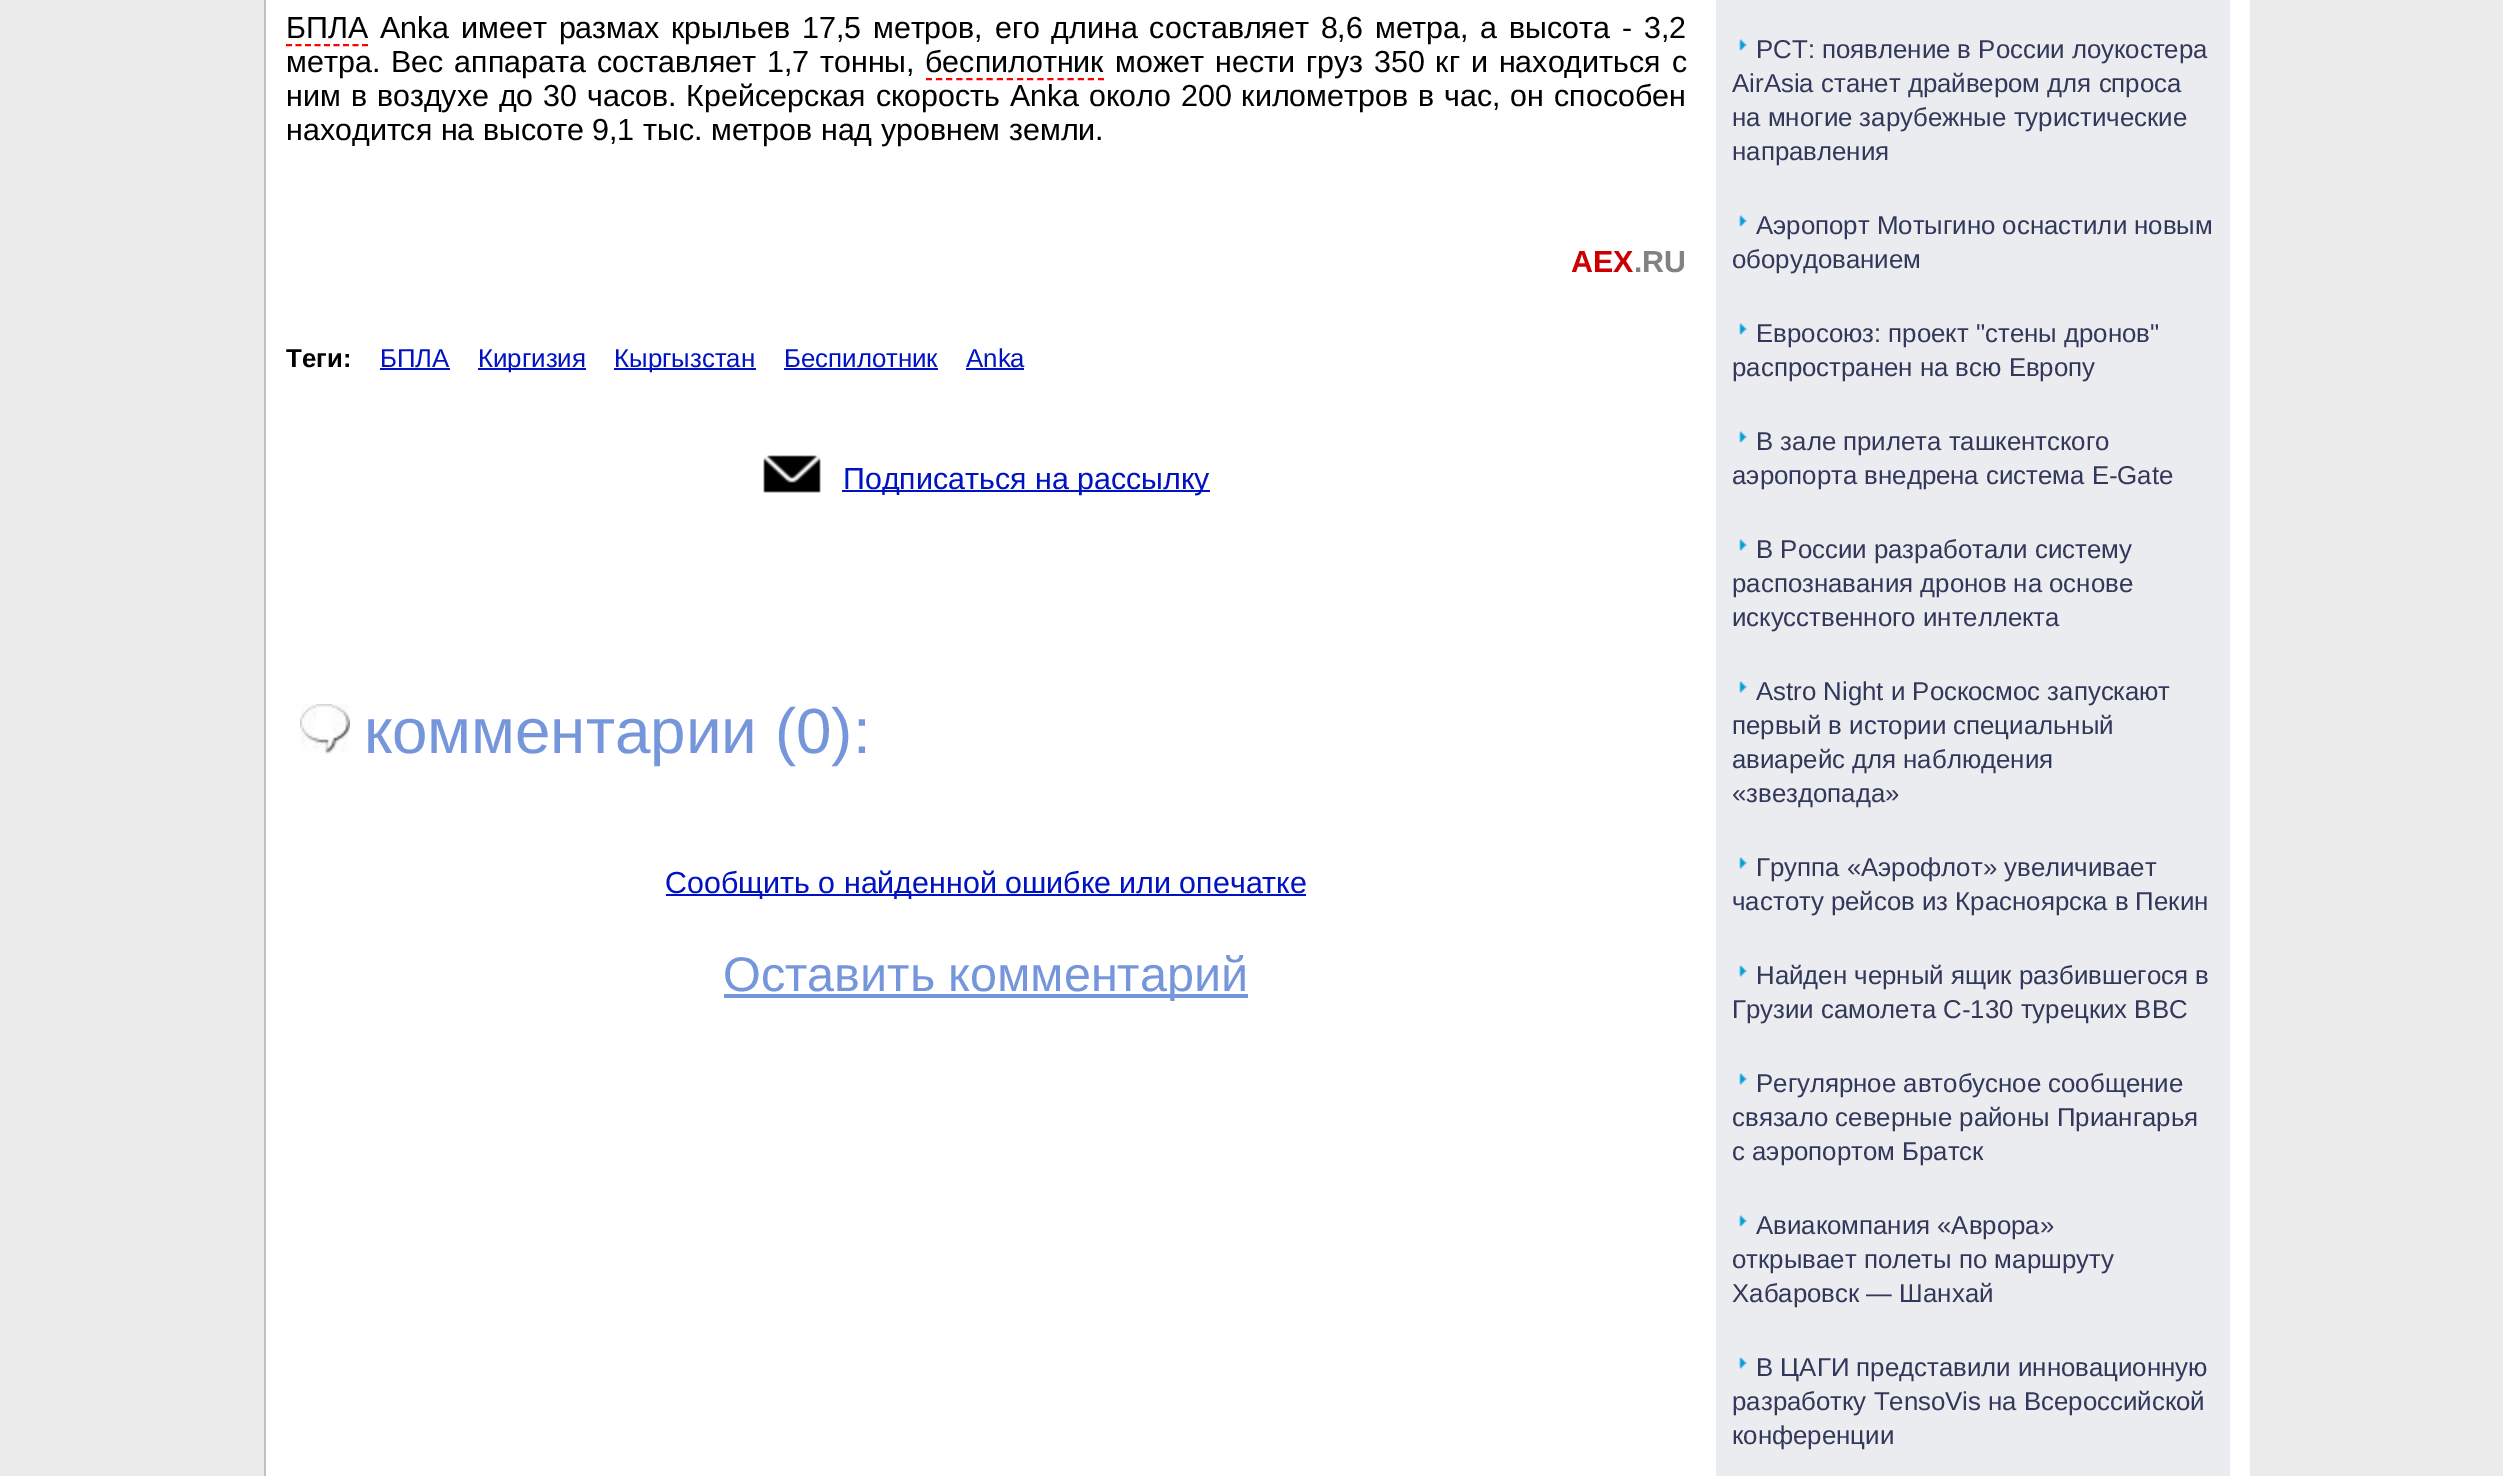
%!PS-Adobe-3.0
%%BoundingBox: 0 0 2503 1476
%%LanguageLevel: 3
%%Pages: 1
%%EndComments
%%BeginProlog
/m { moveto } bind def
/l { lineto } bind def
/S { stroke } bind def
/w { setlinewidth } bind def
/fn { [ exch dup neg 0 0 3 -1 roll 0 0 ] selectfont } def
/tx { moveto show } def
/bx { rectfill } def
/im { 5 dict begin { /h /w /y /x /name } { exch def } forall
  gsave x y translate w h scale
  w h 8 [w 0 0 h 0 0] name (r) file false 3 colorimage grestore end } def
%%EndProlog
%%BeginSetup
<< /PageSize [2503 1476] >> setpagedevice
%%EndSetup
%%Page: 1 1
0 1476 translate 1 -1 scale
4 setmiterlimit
0.922 setgray
0 0 2503 1476 bx
0.753 setgray
2 w
265 -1 1982 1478 rectstroke
1 setgray
266 0 1984 1476 bx
/LiberationSans-Regular 30.4 fn
0 setgray
(БПЛА) 286 38 tx
1 0 0 setrgbcolor
[6 3.5] 0 setdash
286 45 m 368 45 l S
0 setgray
380 38 m 3.4 0 32 (Anka имеет размах крыльев 17,5 метров, его длина составляет 8,6 метра, а высота - 3,2) widthshow
286 72 m 2.5 0 32 (метра. Вес аппарата составляет 1,7 тонны,) widthshow
(беспилотник) 925 72 tx
1 0 0 setrgbcolor
[6 4.12] 0 setdash
926 79 m 1104 79 l S
0 setgray
1115 72 m 2.5 0 32 (может нести груз 350 кг и находиться с) widthshow
286 106 m 1.5 0 32 (ним в воздухе до 30 часов. Крейсерская скорость Anka около 200 километров в час, он способен) widthshow
(находится на высоте 9,1 тыс. метров над уровнем земли.) 286 140 tx
/LiberationSans-Bold 30.4 fn
0.792 0 0.008 setrgbcolor
(AEX) 1571 272 tx
0.51 setgray
(.RU) 1634 272 tx
/LiberationSans-Bold 25.8 fn
0 setgray
(Теги:) 286 367 tx
/LiberationSans-Regular 25.8 fn
0 0.071 0.757 setrgbcolor
(БПЛА) 380 367 tx
380 368 70 2 bx
478 368 108 2 bx
(Киргизия) 478 367 tx
614 368 142 2 bx
(Кыргызстан) 614 367 tx
(Беспилотник) 784 367 tx
784 368 154 2 bx
(Anka) 966 367 tx
966 368 58 2 bx
(image0.raw) 763 455 58 38 im
842 490 368 2 bx
/LiberationSans-Regular 30.4 fn
(Подписаться на рассылку) 843 489 tx
(image1.raw) 300 704 50 50 im
/LiberationSans-Regular 63.75 fn
0.463 0.588 0.863 setrgbcolor
(комментарии \(0\):) 364 753 tx
0 0.071 0.757 setrgbcolor
666 894 640 2 bx
/LiberationSans-Regular 30.4 fn
(Сообщить о найденной ошибке или опечатке) 665 893 tx
0.463 0.588 0.863 setrgbcolor
724 994 524 4 bx
/LiberationSans-Regular 48.6 fn
(Оставить комментарий) 723 991 tx
0.922 0.925 0.937 setrgbcolor
1716 0 514 1476 bx
(image2.raw) 1739 39 8 12 im
/LiberationSans-Regular 25.8 fn
0.196 0.22 0.353 setrgbcolor
(РСТ: появление в России лоукостера) 1756 58 tx
(AirAsia станет драйвером для спроса) 1732 92 tx
(на многие зарубежные туристические) 1732 126 tx
(направления) 1732 160 tx
(image2.raw) 1739 215 8 12 im
(Аэропорт Мотыгино оснастили новым) 1756 234 tx
(оборудованием) 1732 268 tx
(image2.raw) 1739 323 8 12 im
(Евросоюз: проект "стены дронов") 1756 342 tx
(распространен на всю Европу) 1732 376 tx
(image2.raw) 1739 431 8 12 im
(В зале прилета ташкентского) 1756 450 tx
(аэропорта внедрена система E-Gate) 1732 484 tx
(image2.raw) 1739 539 8 12 im
(В России разработали систему) 1756 558 tx
(распознавания дронов на основе) 1732 592 tx
(искусственного интеллекта) 1732 626 tx
(image2.raw) 1739 681 8 12 im
(Astro Night и Роскосмос запускают) 1756 700 tx
(первый в истории специальный) 1732 734 tx
(авиарейс для наблюдения) 1732 768 tx
(«звездопада») 1732 802 tx
(image2.raw) 1739 857 8 12 im
(Группа «Аэрофлот» увеличивает) 1756 876 tx
(частоту рейсов из Красноярска в Пекин) 1732 910 tx
(image2.raw) 1739 965 8 12 im
(Найден черный ящик разбившегося в) 1756 984 tx
(Грузии самолета C-130 турецких ВВС) 1732 1018 tx
(image2.raw) 1739 1073 8 12 im
(Регулярное автобусное сообщение) 1756 1092 tx
(связало северные районы Приангарья) 1732 1126 tx
(с аэропортом Братск) 1732 1160 tx
(image2.raw) 1739 1215 8 12 im
(Авиакомпания «Аврора») 1756 1234 tx
(открывает полеты по маршруту) 1732 1268 tx
(Хабаровск — Шанхай) 1732 1302 tx
(image2.raw) 1739 1357 8 12 im
(В ЦАГИ представили инновационную) 1756 1376 tx
(разработку TensoVis на Всероссийской) 1732 1410 tx
(конференции) 1732 1444 tx
showpage
%%EOF
